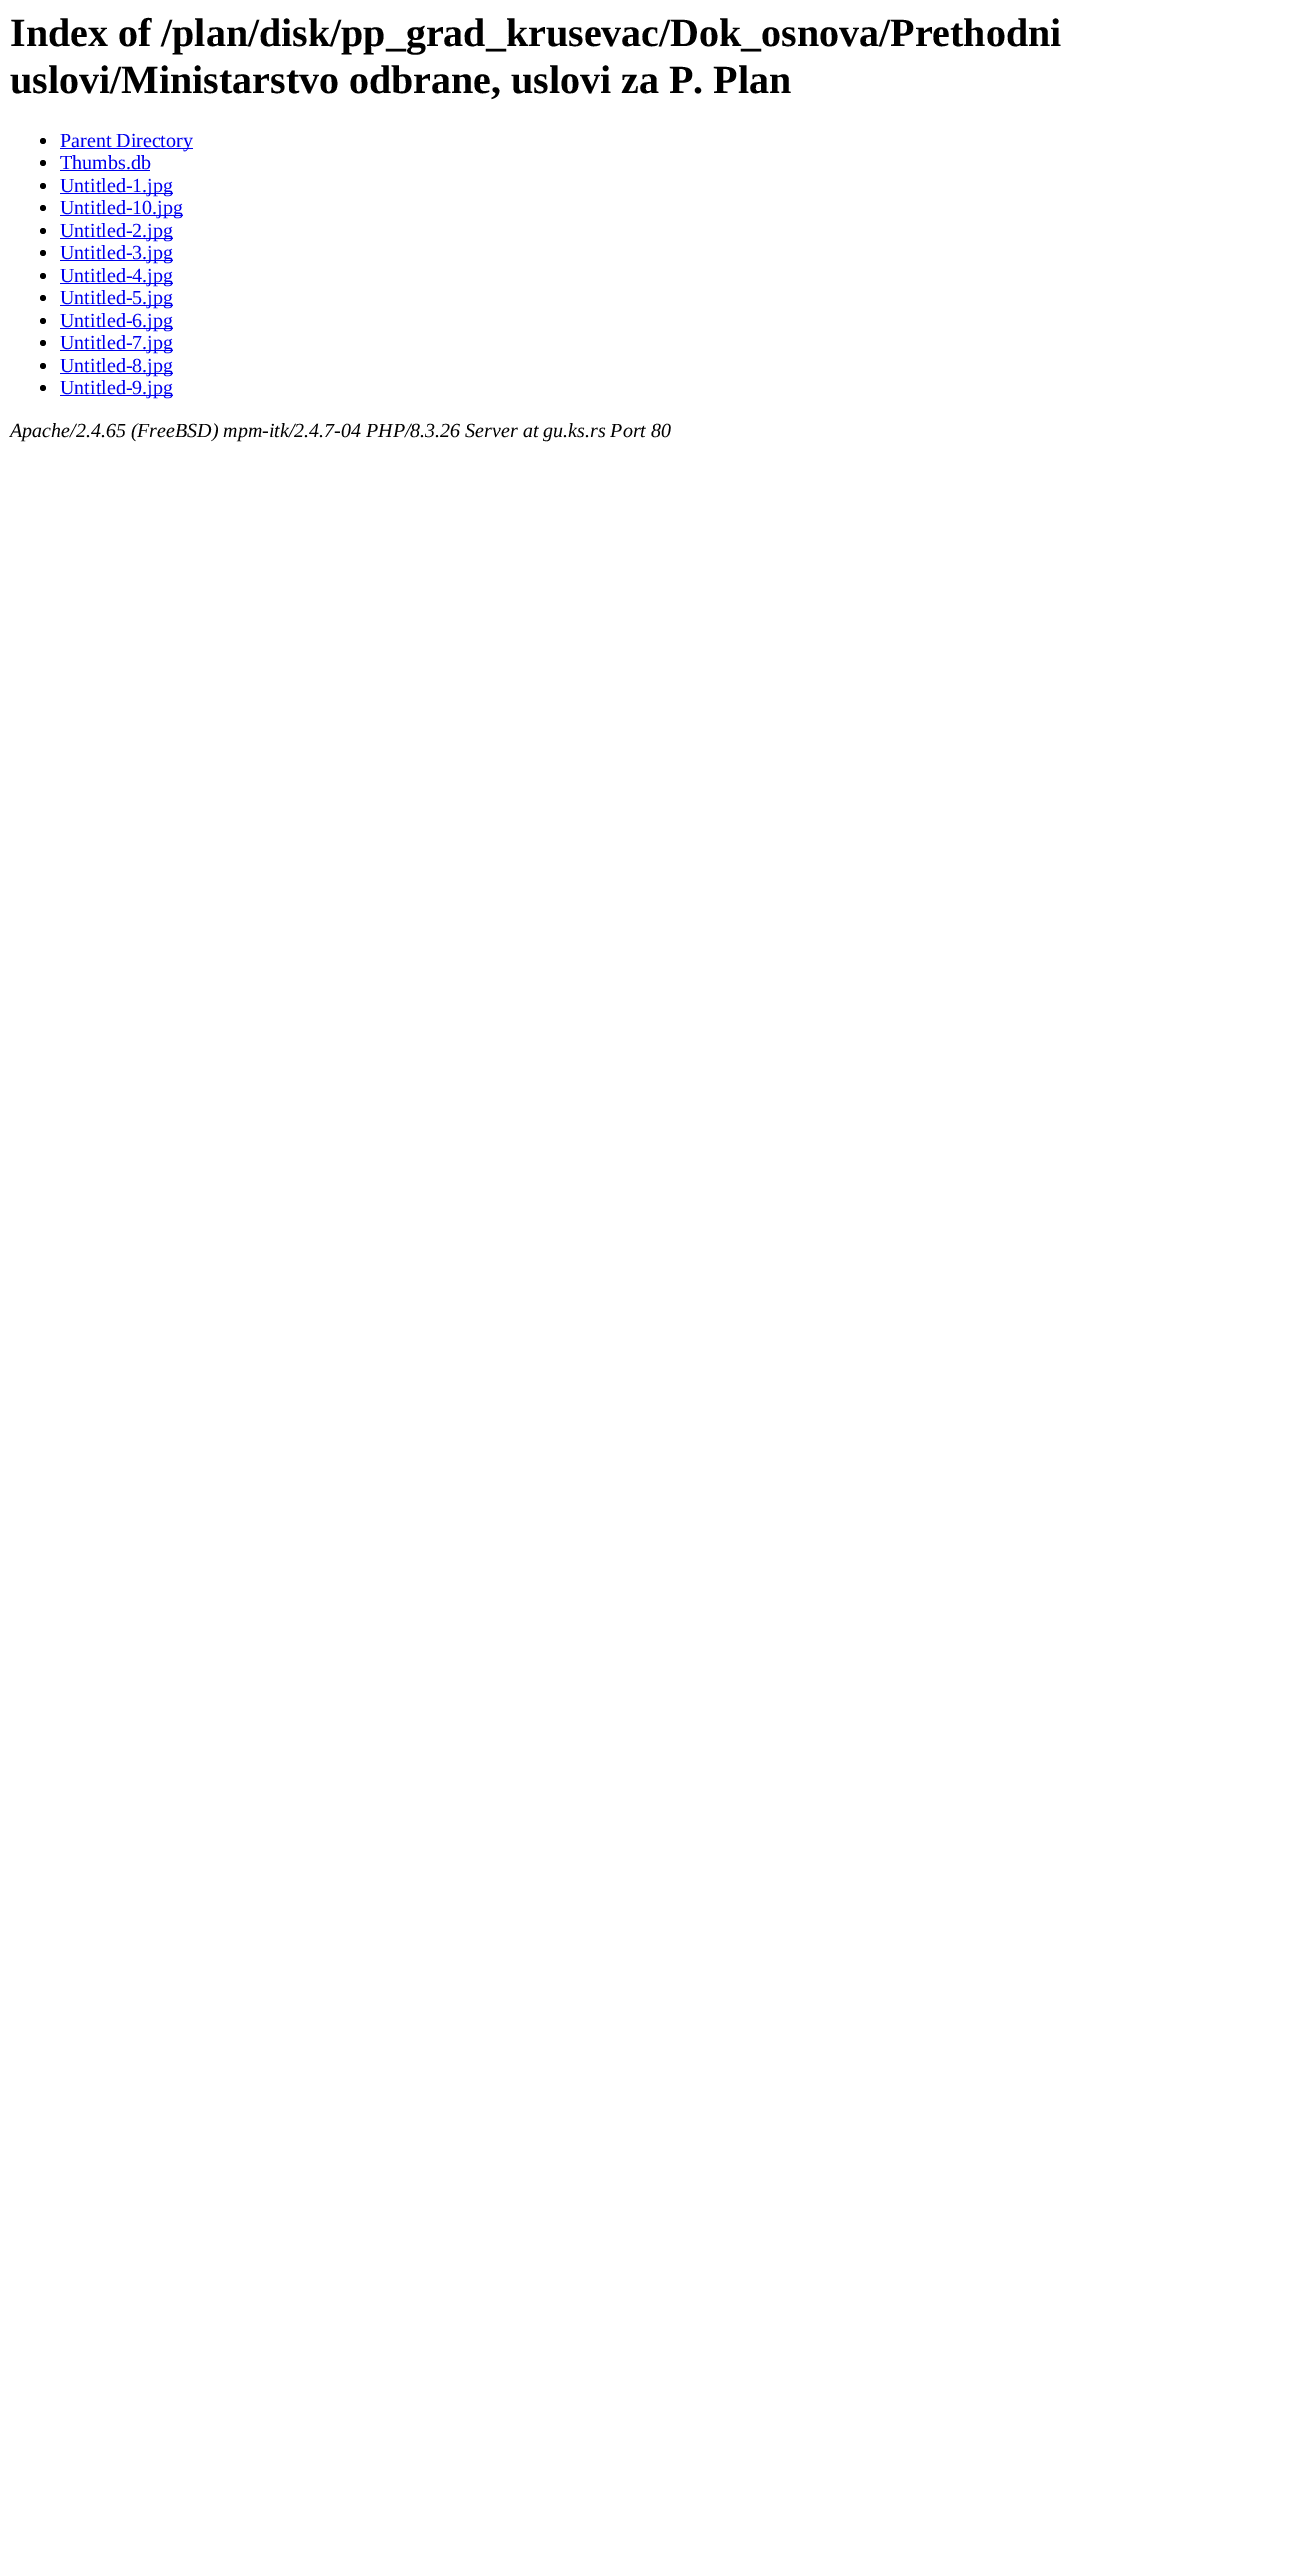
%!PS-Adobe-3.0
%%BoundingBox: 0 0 1303 2566
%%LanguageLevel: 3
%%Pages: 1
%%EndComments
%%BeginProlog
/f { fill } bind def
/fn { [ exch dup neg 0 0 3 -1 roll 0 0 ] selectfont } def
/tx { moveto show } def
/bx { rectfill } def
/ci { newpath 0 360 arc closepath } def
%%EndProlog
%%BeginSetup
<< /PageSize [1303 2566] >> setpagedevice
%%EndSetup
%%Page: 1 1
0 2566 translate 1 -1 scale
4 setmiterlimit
1 setgray
0 0 1303 2566 bx
/LiberationSerif-Bold 40 fn
0 setgray
(Index of /plan/disk/pp_grad_krusevac/Dok_osnova/Prethodni) 10 46 tx
(uslovi/Ministarstvo odbrane, uslovi za P. Plan) 10 93 tx
43 141 3 ci f
0 0 0.933 setrgbcolor
60 148 133 1 bx
/LiberationSerif-Regular 20 fn
(Parent Directory) 60 147 tx
0 setgray
43 163 3 ci f
0 0 0.933 setrgbcolor
(Thumbs.db) 60 169 tx
60 170 90 1 bx
0 setgray
43 186 3 ci f
0 0 0.933 setrgbcolor
60 193 113 1 bx
(Untitled-1.jpg) 60 192 tx
0 setgray
43 208 3 ci f
0 0 0.933 setrgbcolor
60 215 123 1 bx
(Untitled-10.jpg) 60 214 tx
0 setgray
43 231 3 ci f
0 0 0.933 setrgbcolor
60 238 113 1 bx
(Untitled-2.jpg) 60 237 tx
0 setgray
43 253 3 ci f
0 0 0.933 setrgbcolor
60 260 113 1 bx
(Untitled-3.jpg) 60 259 tx
0 setgray
43 276 3 ci f
0 0 0.933 setrgbcolor
60 283 113 1 bx
(Untitled-4.jpg) 60 282 tx
0 setgray
43 298 3 ci f
0 0 0.933 setrgbcolor
60 305 113 1 bx
(Untitled-5.jpg) 60 304 tx
0 setgray
43 321 3 ci f
0 0 0.933 setrgbcolor
60 328 113 1 bx
(Untitled-6.jpg) 60 327 tx
0 setgray
43 343 3 ci f
0 0 0.933 setrgbcolor
60 350 113 1 bx
(Untitled-7.jpg) 60 349 tx
0 setgray
43 366 3 ci f
0 0 0.933 setrgbcolor
60 373 113 1 bx
(Untitled-8.jpg) 60 372 tx
0 setgray
43 388 3 ci f
0 0 0.933 setrgbcolor
60 395 113 1 bx
(Untitled-9.jpg) 60 394 tx
/LiberationSerif-Italic 20 fn
0 setgray
(Apache/2.4.65 \(FreeBSD\) mpm-itk/2.4.7-04 PHP/8.3.26 Server at gu.ks.rs Port 80) 10 437 tx
showpage
%%EOF
